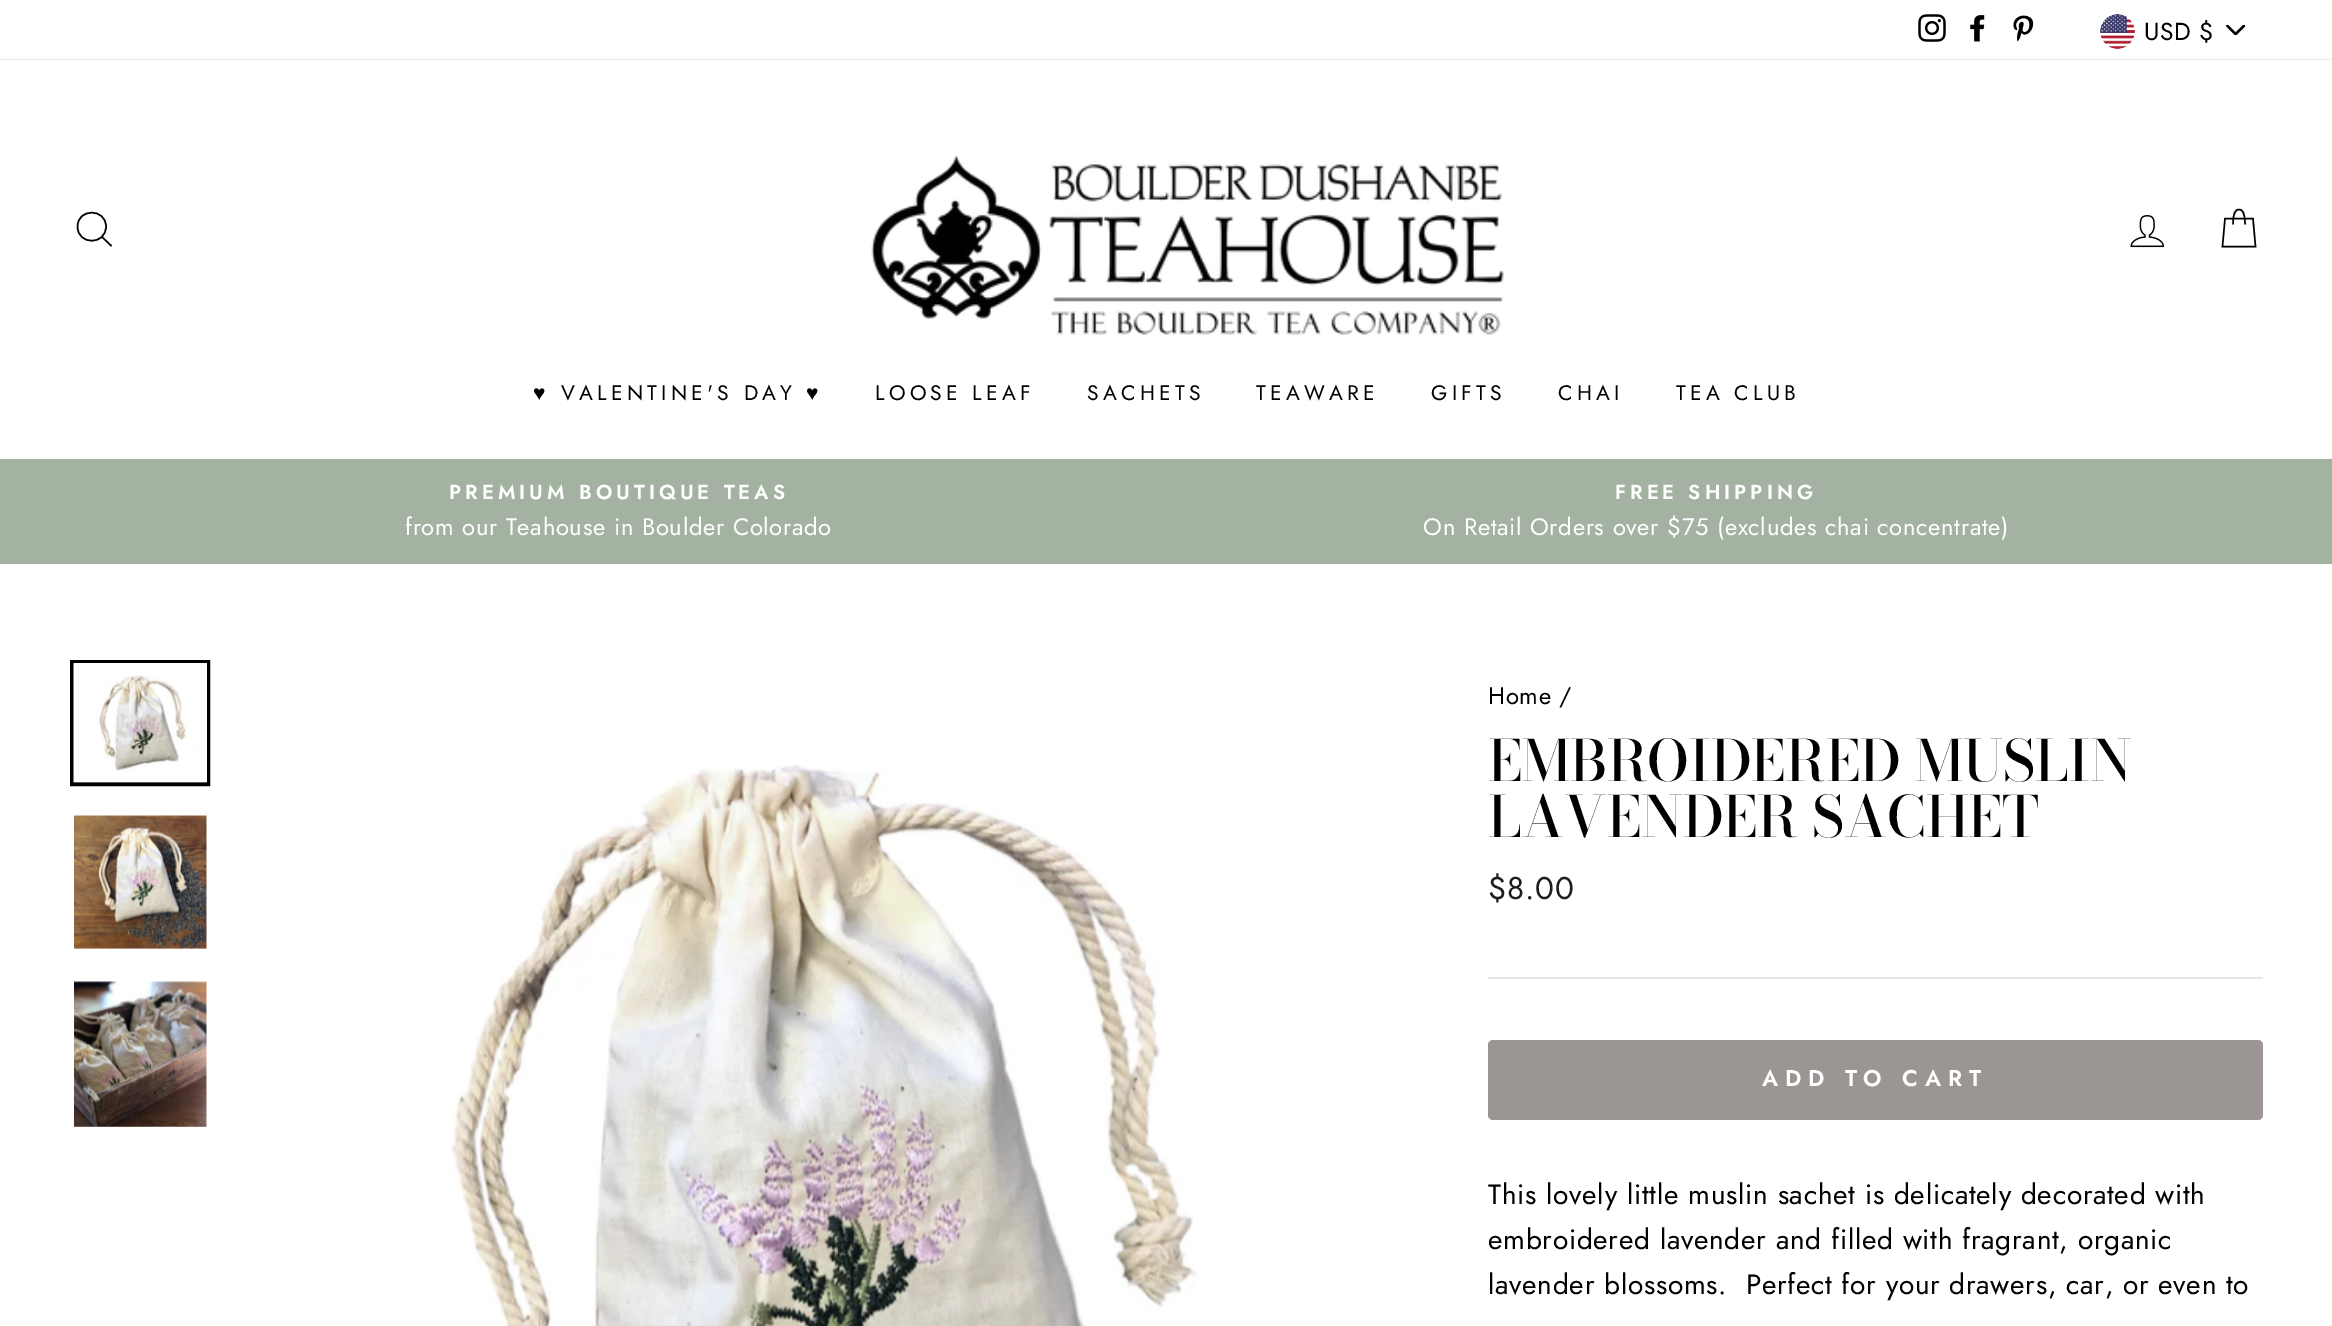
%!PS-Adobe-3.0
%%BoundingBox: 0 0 2332 1326
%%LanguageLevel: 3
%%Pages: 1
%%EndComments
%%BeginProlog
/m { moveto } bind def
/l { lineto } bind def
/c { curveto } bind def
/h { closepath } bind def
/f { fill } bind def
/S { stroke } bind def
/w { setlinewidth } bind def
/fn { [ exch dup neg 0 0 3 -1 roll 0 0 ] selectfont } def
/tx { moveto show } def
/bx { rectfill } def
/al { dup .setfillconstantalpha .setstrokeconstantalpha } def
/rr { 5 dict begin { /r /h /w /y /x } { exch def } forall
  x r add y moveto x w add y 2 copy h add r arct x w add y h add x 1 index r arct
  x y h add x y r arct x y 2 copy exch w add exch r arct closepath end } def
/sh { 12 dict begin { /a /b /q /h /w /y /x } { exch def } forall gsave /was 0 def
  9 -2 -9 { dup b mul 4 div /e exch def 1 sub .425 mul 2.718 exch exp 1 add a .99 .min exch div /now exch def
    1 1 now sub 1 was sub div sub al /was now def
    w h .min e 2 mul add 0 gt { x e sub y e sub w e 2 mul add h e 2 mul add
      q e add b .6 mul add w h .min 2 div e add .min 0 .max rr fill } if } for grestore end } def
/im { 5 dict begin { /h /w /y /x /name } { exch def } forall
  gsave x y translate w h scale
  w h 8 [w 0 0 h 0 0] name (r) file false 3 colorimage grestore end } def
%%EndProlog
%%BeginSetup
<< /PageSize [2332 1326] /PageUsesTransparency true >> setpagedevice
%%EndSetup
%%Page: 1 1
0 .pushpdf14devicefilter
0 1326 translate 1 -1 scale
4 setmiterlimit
1 setgray
0 0 2332 1326 bx
(image0.raw) 1918 14 28 28 im
(image1.raw) 1970 15 15 27 im
(image2.raw) 2013 15 21 27 im
(image3.raw) 2226 25 19 10 im
(image4.raw) 2100 14 35 35 im
/Jost-Regular 24.5 fn
0 setgray
2144 40 m 0.5 0 (USD $) ashow
0 60 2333 399 0 1 0.2 sh
1 setgray
0 60 2332 399 bx
0 setgray
1.5 w
106 226.5 m 106 245.5 77.5 245.5 77.5 226.5 c 77.5 208 106 208 106 226.5 c h 111.5 246 m 102 237 l S
(image5.raw) 871 155 633 180 im
(image6.raw) 2130 215 35 33 im
2233 224.5 m 2233 212.5 2235.5 209.5 2239 209.5 c 2242.5 209.5 2245 212.5 2245 224.5 c 2225 218.5 m 2253 218.5 l 2255.5 246.5 l 2222.5 246.5 l h S
/LiberationSans-Regular 21 fn
533 400 m 4.25 0 (♥) ashow
/Jost-Regular 21 fn
561 400 m 4.25 0 (VALENTINE'S DAY) ashow
/LiberationSans-Regular 21 fn
806 400 m 4.25 0 (♥) ashow
/Jost-Regular 21 fn
875 400 m 4.25 0 (LOOSE LEAF) ashow
1087 400 m 4.25 0 (SACHETS) ashow
1256 400 m 4.25 0 (TEAWARE) ashow
1431 400 m 4.25 0 (GIFTS) ashow
1558 400 m 4.25 0 (CHAI) ashow
1676 400 m 4.25 0 (TEA CLUB) ashow
0.639 0.698 0.631 setrgbcolor
0 459 2332 105 bx
/Jost-SemiBold 20.25 fn
1 setgray
449 499 m 4.05 0 (PREMIUM BOUTIQUE TEAS) ashow
/Jost-Regular 23.8 fn
405 535 m 0.7 0 (from our Teahouse in Boulder Colorado) ashow
/Jost-SemiBold 20.25 fn
1615 499 m 4.05 0 (FREE SHIPPING) ashow
/Jost-Regular 23.8 fn
1423 535 m 0.7 0 (On Retail Orders over $75 \(excludes chai concentrate\)) ashow
0 setgray
4 w
72 662 136 122 rectstroke
1 setgray
74 663 133 119 bx
(image7.raw) 73 663 134 120 im
(image8.raw) 74 815 133 134 im
(image9.raw) 74 981 133 146 im
(image10.raw) 451 765 747 561 im
0 setgray
1488 704 m 0.7 0 (Home /) ashow
/BodoniModa-Medium 56.5 fn
(EMBROIDERED MUSLIN) 1488 781 tx
(LAVENDER SACHET) 1488 837 tx
/Jost-Regular 31.5 fn
0.11 0.114 0.114 setrgbcolor
1488 899 m 0.7 0 ($8.00) ashow
0.91 0.91 0.882 setrgbcolor
1488 977 775 2 bx
0.608 0.588 0.576 setrgbcolor
1488 1040 775 80 5 rr f
/Jost-SemiBold 22.75 fn
1 setgray
1762 1086 m 6.75 0 (ADD TO CART) ashow
/Jost-Regular 28 fn
0 setgray
1488 1204 m 0.7 0 (This lovely little muslin sachet is delicately decorated with) ashow
1488 1249 m 0.7 0 (embroidered lavender and filled with fragrant, organic) ashow
1488 1294 m 0.7 0 (lavender blossoms.  Perfect for your drawers, car, or even to) ashow
.poppdf14devicefilter showpage
%%EOF
